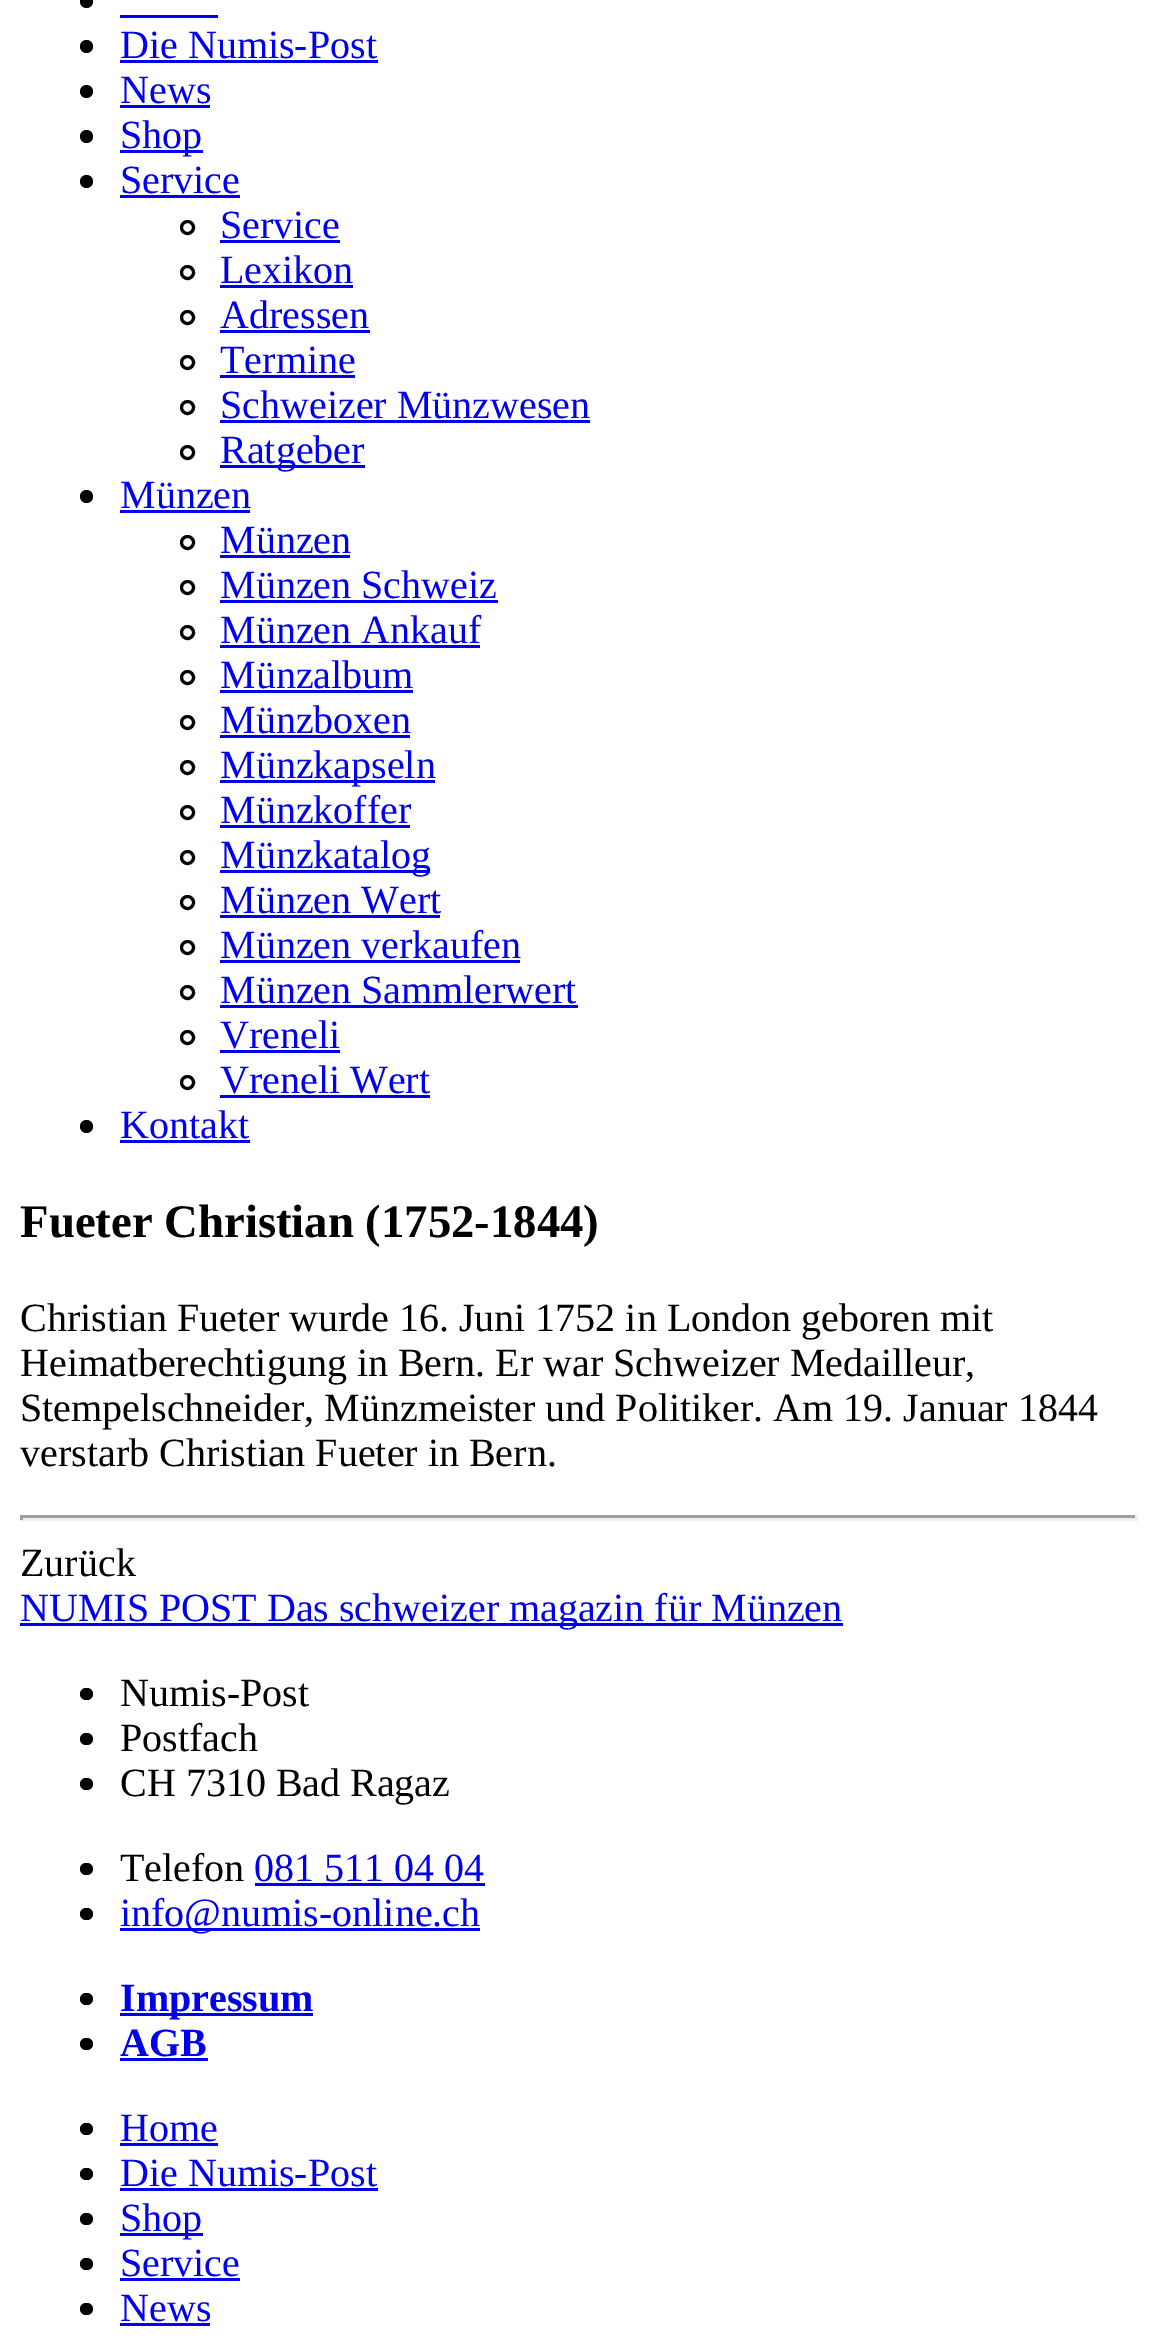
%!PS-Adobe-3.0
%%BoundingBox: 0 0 1157 2344
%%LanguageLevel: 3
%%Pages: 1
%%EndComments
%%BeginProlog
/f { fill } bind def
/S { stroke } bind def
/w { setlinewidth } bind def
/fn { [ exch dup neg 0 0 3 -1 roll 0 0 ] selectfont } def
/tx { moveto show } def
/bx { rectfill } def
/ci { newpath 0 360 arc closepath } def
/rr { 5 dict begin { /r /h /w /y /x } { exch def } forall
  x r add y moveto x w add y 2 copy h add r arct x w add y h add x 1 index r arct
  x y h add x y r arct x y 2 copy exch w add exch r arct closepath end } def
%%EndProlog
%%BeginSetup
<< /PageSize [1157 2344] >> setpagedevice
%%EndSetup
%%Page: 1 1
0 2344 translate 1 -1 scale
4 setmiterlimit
1 setgray
0 0 1157 2344 bx
0 setgray
86.5 1.5 6.5 ci f
0 0 0.933 setrgbcolor
120 15 98 3 bx
0 setgray
86.5 46.5 6.5 ci f
/LiberationSerif-Regular 40 fn
0 0 0.933 setrgbcolor
(Die Numis-Post) 120 58 tx
120 60 258 3 bx
0 setgray
86.5 91.5 6.5 ci f
0 0 0.933 setrgbcolor
(News) 120 103 tx
120 105 90 3 bx
0 setgray
86.5 136.5 6.5 ci f
0 0 0.933 setrgbcolor
120 150 83 3 bx
(Shop) 120 148 tx
0 setgray
86.5 181.5 6.5 ci f
0 0 0.933 setrgbcolor
(Service) 120 193 tx
120 195 120 3 bx
0 setgray
3 w
187.5 227.5 6 ci S
0 0 0.933 setrgbcolor
(Service) 220 238 tx
220 240 120 3 bx
0 setgray
187.5 272.5 6 ci S
0 0 0.933 setrgbcolor
(Lexikon) 220 283 tx
220 285 133 3 bx
0 setgray
187.5 317.5 6 ci S
0 0 0.933 setrgbcolor
(Adressen) 220 328 tx
220 330 150 3 bx
0 setgray
187.5 362.5 6 ci S
0 0 0.933 setrgbcolor
(Termine) 220 373 tx
220 375 135 3 bx
0 setgray
187.5 407.5 6 ci S
0 0 0.933 setrgbcolor
(Schweizer Münzwesen) 220 418 tx
220 420 370 3 bx
0 setgray
187.5 452.5 6 ci S
0 0 0.933 setrgbcolor
220 465 145 3 bx
(Ratgeber) 220 463 tx
0 setgray
86.5 496.5 6.5 ci f
0 0 0.933 setrgbcolor
(Münzen) 120 508 tx
120 510 130 3 bx
0 setgray
187.5 542.5 6 ci S
0 0 0.933 setrgbcolor
(Münzen) 220 553 tx
220 555 130 3 bx
0 setgray
187.5 587.5 6 ci S
0 0 0.933 setrgbcolor
(Münzen Schweiz) 220 598 tx
220 600 278 3 bx
0 setgray
187.5 632.5 6 ci S
0 0 0.933 setrgbcolor
(Münzen Ankauf) 220 643 tx
220 645 260 3 bx
0 setgray
187.5 677.5 6 ci S
0 0 0.933 setrgbcolor
(Münzalbum) 220 688 tx
220 690 193 3 bx
0 setgray
187.5 722.5 6 ci S
0 0 0.933 setrgbcolor
(Münzboxen) 220 733 tx
220 735 190 3 bx
0 setgray
187.5 767.5 6 ci S
0 0 0.933 setrgbcolor
220 780 215 3 bx
(Münzkapseln) 220 778 tx
0 setgray
187.5 812.5 6 ci S
0 0 0.933 setrgbcolor
(Münzkoffer) 220 823 tx
220 825 190 3 bx
0 setgray
187.5 857.5 6 ci S
0 0 0.933 setrgbcolor
220 870 210 3 bx
(Münzkatalog) 220 868 tx
0 setgray
187.5 902.5 6 ci S
0 0 0.933 setrgbcolor
(Münzen Wert) 220 913 tx
220 915 220 3 bx
0 setgray
187.5 947.5 6 ci S
0 0 0.933 setrgbcolor
(Münzen verkaufen) 220 958 tx
220 960 300 3 bx
0 setgray
187.5 992.5 6 ci S
0 0 0.933 setrgbcolor
(Münzen Sammlerwert) 220 1003 tx
220 1005 358 3 bx
0 setgray
187.5 1037.5 6 ci S
0 0 0.933 setrgbcolor
(Vreneli) 220 1048 tx
220 1050 120 3 bx
0 setgray
187.5 1082.5 6 ci S
0 0 0.933 setrgbcolor
(Vreneli Wert) 220 1093 tx
220 1095 210 3 bx
0 setgray
86.5 1126.5 6.5 ci f
0 0 0.933 setrgbcolor
(Kontakt) 120 1138 tx
120 1140 130 3 bx
/LiberationSerif-Bold 46.75 fn
0 setgray
(Fueter Christian \(1752-1844\)) 20 1237 tx
/LiberationSerif-Regular 40 fn
(Christian Fueter wurde 16. Juni 1752 in London geboren mit) 20 1331 tx
(Heimatberechtigung in Bern. Er war Schweizer Medailleur,) 20 1376 tx
(Stempelschneider, Münzmeister und Politiker. Am 19. Januar 1844) 20 1421 tx
(verstarb Christian Fueter in Bern.) 20 1466 tx
0.624 setgray
20 1515 1118 3 bx
0.933 setgray
1135 1515 3 5 bx
20 1518 1118 3 bx
0.624 setgray
20 1515 3 5 bx
0 setgray
(Zurück) 20 1576 tx
0 0 0.933 setrgbcolor
20 1623 823 3 bx
(NUMIS POST Das schweizer magazin für Münzen) 20 1621 tx
0 setgray
80 1688 13 12 6 rr f
(Numis-Post) 120 1706 tx
80 1733 13 12 6 rr f
(Postfach) 120 1751 tx
80 1778 13 12 6 rr f
(CH 7310 Bad Ragaz) 120 1796 tx
80 1863 13 12 6 rr f
(Telefon) 120 1881 tx
0 0 0.933 setrgbcolor
(081 511 04 04) 254 1881 tx
255 1883 230 3 bx
0 setgray
80 1908 13 12 6 rr f
0 0 0.933 setrgbcolor
120 1928 360 3 bx
(info@numis-online.ch) 120 1926 tx
0 setgray
80 1993 13 12 6 rr f
0 0 0.933 setrgbcolor
120 2013 193 3 bx
/LiberationSerif-Bold 40 fn
(Impressum) 120 2011 tx
0 setgray
80 2038 13 12 6 rr f
0 0 0.933 setrgbcolor
(AGB) 120 2056 tx
120 2058 88 3 bx
0 setgray
80 2123 13 12 6 rr f
/LiberationSerif-Regular 40 fn
0 0 0.933 setrgbcolor
(Home) 120 2141 tx
120 2143 98 3 bx
0 setgray
80 2168 13 12 6 rr f
0 0 0.933 setrgbcolor
(Die Numis-Post) 120 2186 tx
120 2188 258 3 bx
0 setgray
80 2213 13 12 6 rr f
0 0 0.933 setrgbcolor
120 2233 83 3 bx
(Shop) 120 2231 tx
0 setgray
80 2258 13 12 6 rr f
0 0 0.933 setrgbcolor
(Service) 120 2276 tx
120 2278 120 3 bx
0 setgray
80 2303 13 12 6 rr f
0 0 0.933 setrgbcolor
(News) 120 2321 tx
120 2323 90 3 bx
showpage
%%EOF
